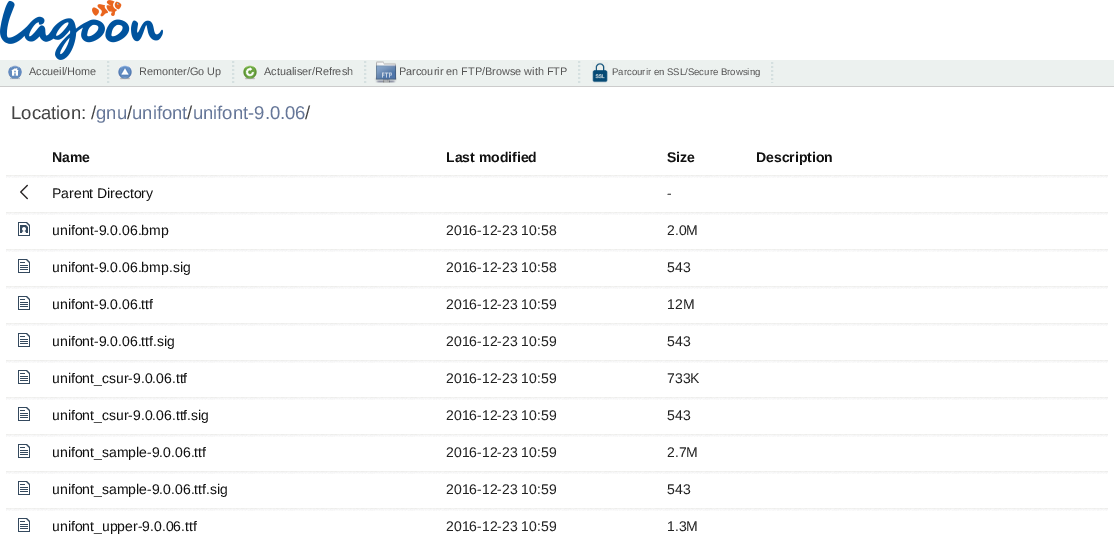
%!PS-Adobe-3.0
%%BoundingBox: 0 0 1114 545
%%LanguageLevel: 3
%%Pages: 1
%%EndComments
%%BeginProlog
/m { moveto } bind def
/l { lineto } bind def
/S { stroke } bind def
/w { setlinewidth } bind def
/fn { [ exch dup neg 0 0 3 -1 roll 0 0 ] selectfont } def
/tx { moveto show } def
/bx { rectfill } def
/im { 5 dict begin { /h /w /y /x /name } { exch def } forall
  gsave x y translate w h scale
  w h 8 [w 0 0 h 0 0] name (r) file false 3 colorimage grestore end } def
%%EndProlog
%%BeginSetup
<< /PageSize [1114 545] >> setpagedevice
%%EndSetup
%%Page: 1 1
0 545 translate 1 -1 scale
4 setmiterlimit
1 setgray
0 0 1114 545 bx
(image0.raw) 0 0 163 60 im
0.925 0.945 0.937 setrgbcolor
0 60 1114 26 bx
0.8 setgray
0 86 1114 1 bx
(image1.raw) 8 65 14 15 im
/LiberationSans-Regular 10.9 fn
0.333 setgray
(Accueil/Home) 29 75 tx
0.835 0.878 0.878 setrgbcolor
2 w
[2 2] 0 setdash
108 61 m 108 84 l S
(image2.raw) 118 65 14 15 im
0.333 setgray
(Remonter/Go Up) 139 75 tx
0.835 0.878 0.878 setrgbcolor
233 61 m 233 84 l S
(image3.raw) 243 65 14 15 im
0.333 setgray
(Actualiser/Refresh) 264 75 tx
0.835 0.878 0.878 setrgbcolor
365 61 m 365 84 l S
(image4.raw) 374 61 23 22 im
0.333 setgray
(Parcourir en FTP/Browse with FTP) 399 75 tx
0.835 0.878 0.878 setrgbcolor
579 61 m 579 84 l S
(image5.raw) 592 62 16 21 im
/LiberationSans-Regular 9.6 fn
0.333 setgray
(Parcourir en SSL/Secure Browsing) 612 75 tx
0.835 0.878 0.878 setrgbcolor
772 62 m 772 83 l S
/LiberationSans-Regular 18.5 fn
0.267 setgray
(Location: /) 11 119 tx
0.4 0.467 0.6 setrgbcolor
(gnu unifont unifont-9.0.06) 96 119 tx
0.267 setgray
(/) 127 119 tx
(/) 187 119 tx
(/) 305 119 tx
/LiberationSans-Bold 14 fn
0.067 setgray
(Name) 52 162 tx
(Last modified) 446 162 tx
(Size) 667 162 tx
(Description) 756 162 tx
(image6.raw) 6 175 36 3 im
(image7.raw) 20 184 8 16 im
(image8.raw) 436 175 221 3 im
(image9.raw) 746 175 362 3 im
(image10.raw) 42 175 394 3 im
/LiberationSans-Regular 14 fn
(Parent Directory) 52 198 tx
(image11.raw) 657 175 89 3 im
0.133 setgray
(-) 667 198 tx
(image6.raw) 6 212 36 3 im
(image12.raw) 18 222 12 14 im
(image9.raw) 746 212 362 3 im
(image10.raw) 42 212 394 3 im
0.067 setgray
(unifont-9.0.06.bmp) 52 235 tx
(image8.raw) 436 212 221 3 im
0.133 setgray
(2016-12-23 10:58) 446 235 tx
(image11.raw) 657 212 89 3 im
(2.0M) 667 235 tx
(image6.raw) 6 249 36 3 im
(image13.raw) 18 259 12 14 im
(image9.raw) 746 249 362 3 im
(image10.raw) 42 249 394 3 im
0.067 setgray
(unifont-9.0.06.bmp.sig) 52 272 tx
(image8.raw) 436 249 221 3 im
0.133 setgray
(2016-12-23 10:58) 446 272 tx
(image11.raw) 657 249 89 3 im
(543) 667 272 tx
(image6.raw) 6 286 36 3 im
(image13.raw) 18 296 12 14 im
(image9.raw) 746 286 362 3 im
(image10.raw) 42 286 394 3 im
0.067 setgray
(unifont-9.0.06.ttf) 52 309 tx
(image8.raw) 436 286 221 3 im
0.133 setgray
(2016-12-23 10:59) 446 309 tx
(image11.raw) 657 286 89 3 im
(12M) 667 309 tx
(image6.raw) 6 323 36 3 im
(image13.raw) 18 333 12 14 im
(image9.raw) 746 323 362 3 im
(image10.raw) 42 323 394 3 im
0.067 setgray
(unifont-9.0.06.ttf.sig) 52 346 tx
(image8.raw) 436 323 221 3 im
0.133 setgray
(2016-12-23 10:59) 446 346 tx
(image11.raw) 657 323 89 3 im
(543) 667 346 tx
(image6.raw) 6 360 36 3 im
(image13.raw) 18 370 12 14 im
(image9.raw) 746 360 362 3 im
(image10.raw) 42 360 394 3 im
0.067 setgray
(unifont_csur-9.0.06.ttf) 52 383 tx
(image8.raw) 436 360 221 3 im
0.133 setgray
(2016-12-23 10:59) 446 383 tx
(image11.raw) 657 360 89 3 im
(733K) 667 383 tx
(image6.raw) 6 397 36 3 im
(image13.raw) 18 407 12 14 im
(image9.raw) 746 397 362 3 im
(image10.raw) 42 397 394 3 im
0.067 setgray
(unifont_csur-9.0.06.ttf.sig) 52 420 tx
(image8.raw) 436 397 221 3 im
0.133 setgray
(2016-12-23 10:59) 446 420 tx
(image11.raw) 657 397 89 3 im
(543) 667 420 tx
(image6.raw) 6 434 36 3 im
(image13.raw) 18 444 12 14 im
(image9.raw) 746 434 362 3 im
(image10.raw) 42 434 394 3 im
0.067 setgray
(unifont_sample-9.0.06.ttf) 52 457 tx
(image8.raw) 436 434 221 3 im
0.133 setgray
(2016-12-23 10:59) 446 457 tx
(image11.raw) 657 434 89 3 im
(2.7M) 667 457 tx
(image6.raw) 6 471 36 3 im
(image13.raw) 18 481 12 14 im
(image9.raw) 746 471 362 3 im
(image10.raw) 42 471 394 3 im
0.067 setgray
(unifont_sample-9.0.06.ttf.sig) 52 494 tx
(image8.raw) 436 471 221 3 im
0.133 setgray
(2016-12-23 10:59) 446 494 tx
(image11.raw) 657 471 89 3 im
(543) 667 494 tx
(image6.raw) 6 508 36 3 im
(image13.raw) 18 518 12 14 im
(image9.raw) 746 508 362 3 im
(image10.raw) 42 508 394 3 im
0.067 setgray
(unifont_upper-9.0.06.ttf) 52 531 tx
(image8.raw) 436 508 221 3 im
0.133 setgray
(2016-12-23 10:59) 446 531 tx
(image11.raw) 657 508 89 3 im
(1.3M) 667 531 tx
showpage
%%EOF
